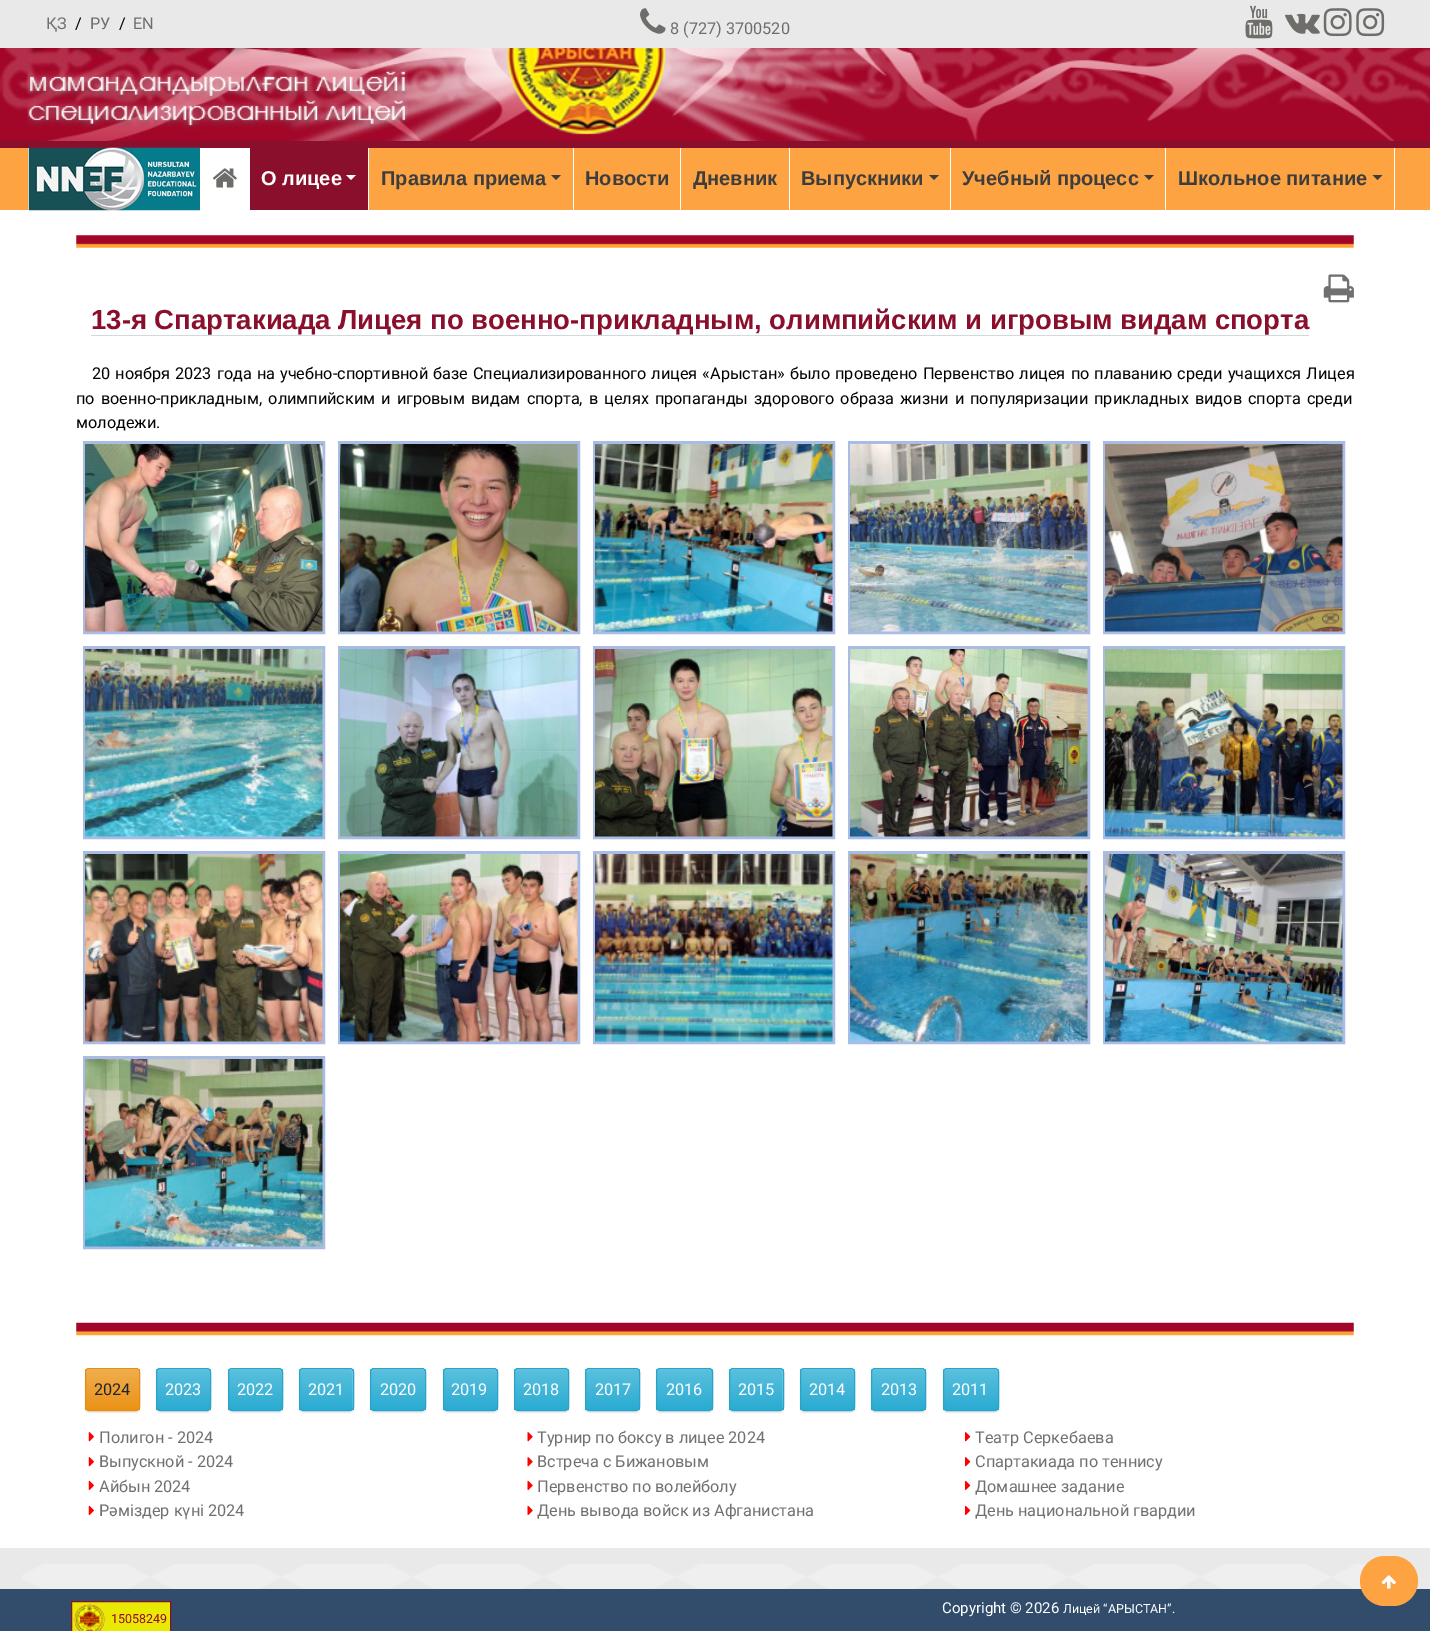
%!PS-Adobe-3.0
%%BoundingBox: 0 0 1430 1631
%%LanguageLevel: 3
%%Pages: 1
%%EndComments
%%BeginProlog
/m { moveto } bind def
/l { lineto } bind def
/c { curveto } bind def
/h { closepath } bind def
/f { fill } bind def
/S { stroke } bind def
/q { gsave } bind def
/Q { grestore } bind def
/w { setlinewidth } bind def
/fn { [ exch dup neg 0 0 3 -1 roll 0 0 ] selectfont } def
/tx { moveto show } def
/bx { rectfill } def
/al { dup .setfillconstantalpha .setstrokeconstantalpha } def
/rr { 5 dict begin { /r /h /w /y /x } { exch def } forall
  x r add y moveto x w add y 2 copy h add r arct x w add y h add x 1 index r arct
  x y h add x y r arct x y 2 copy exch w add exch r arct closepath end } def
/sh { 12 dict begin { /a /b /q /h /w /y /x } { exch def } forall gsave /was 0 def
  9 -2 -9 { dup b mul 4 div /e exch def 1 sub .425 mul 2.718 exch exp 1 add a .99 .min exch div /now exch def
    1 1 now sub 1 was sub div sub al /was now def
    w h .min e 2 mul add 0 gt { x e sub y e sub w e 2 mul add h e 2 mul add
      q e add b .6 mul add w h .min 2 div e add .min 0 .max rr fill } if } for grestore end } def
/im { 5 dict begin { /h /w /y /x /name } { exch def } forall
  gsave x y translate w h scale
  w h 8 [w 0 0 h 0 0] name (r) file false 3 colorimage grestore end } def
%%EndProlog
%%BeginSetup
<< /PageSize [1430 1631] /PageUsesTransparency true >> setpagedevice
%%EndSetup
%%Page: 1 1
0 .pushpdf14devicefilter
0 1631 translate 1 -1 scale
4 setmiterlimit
1 setgray
0 0 1430 1631 bx
0.914 setgray
0 0 1430 48 bx
/Roboto-Regular 16.25 fn
0.439 setgray
(ҚЗ) 46 29 tx
0 setgray
(/) 75 29 tx
0.439 setgray
(РУ) 90 29 tx
0 setgray
(/) 119 29 tx
0.439 setgray
(EN) 133 29 tx
(image0.raw) 640 8 26 26 im
0.435 0.427 0.416 setrgbcolor
(8 \(727\) 3700520) 670 34 tx
(image1.raw) 1245 5 28 34 im
(image2.raw) 1285 13 35 21 im
(image3.raw) 1323 8 29 29 im
(image4.raw) 1356 8 29 29 im
(image5.raw) 0 48 1430 93 im
(image6.raw) 46 48 1349 93 im
(image7.raw) 27 48 381 82 im
0.992 0.639 0.259 setrgbcolor
0 148 1430 62 bx
0.541 0.059 0.173 setrgbcolor
0 141 1430 7 bx
1 setgray
28 148 1 62 bx
200 148 50 62 bx
(image8.raw) 28 147 172 64 im
(image9.raw) 213 168 24 20 im
0.541 0.059 0.173 setrgbcolor
250 148 118 62 bx
1 setgray
368 148 1 62 bx
/LiberationSans-Bold 20 fn
(О лицее) 261 185 tx
346 175 m 356 175 l 351 180 l h f
573 148 1 62 bx
0.239 setgray
(Правила приема) 381 185 tx
551 175 m 561 175 l 556 180 l h f
1 setgray
680 148 1 62 bx
0.239 setgray
(Новости) 585 185 tx
1 setgray
789 148 1 62 bx
0.239 setgray
(Дневник) 693 185 tx
1 setgray
950 148 1 62 bx
0.239 setgray
(Выпускники) 801 185 tx
929 175 m 939 175 l 934 180 l h f
1 setgray
1165 148 1 62 bx
0.239 setgray
(Учебный процесс) 962 185 tx
1144 175 m 1154 175 l 1149 180 l h f
1 setgray
1394 148 1 62 bx
0.239 setgray
(Школьное питание) 1178 185 tx
1372.5 175 m 1382.5 175 l 1377.5 180 l h f
(image10.raw) 76 235 1278 13 im
(image11.raw) 1323 274 31 29 im
/LiberationSans-Bold 27.5 fn
0.541 0.059 0.173 setrgbcolor
(13-я Спартакиада Лицея по военно-прикладным, олимпийским и игровым видам спорта) 91 329 tx
0.812 0.855 0.867 setrgbcolor
91 335 1218 1 bx
/Roboto-Regular 16.25 fn
0 setgray
92 379 m 1.1 0 32 (20 ноября 2023 года на учебно-спортивной базе Специализированного лицея «Арыстан» было проведено Первенство лицея по плаванию среди учащихся Лицея) widthshow
76 404 m 2 0 32 (по военно-прикладным, олимпийским и игровым видам спорта, в целях пропаганды здорового образа жизни и популяризации прикладных видов спорта среди) widthshow
(молодежи.) 76 428 tx
0.659 0.737 0.898 setrgbcolor
3 w
84.5 442.5 239 190 rectstroke
(image12.raw) 85 444 238 188 im
339.5 442.5 239 190 rectstroke
(image13.raw) 340 444 238 188 im
594.5 442.5 239 190 rectstroke
(image14.raw) 595 444 238 188 im
849.5 442.5 239 190 rectstroke
(image15.raw) 850 444 238 188 im
1104.5 442.5 239 190 rectstroke
(image16.raw) 1105 444 238 188 im
84.5 647.5 239 190 rectstroke
(image17.raw) 85 649 238 188 im
339.5 647.5 239 190 rectstroke
(image18.raw) 340 649 238 188 im
594.5 647.5 239 190 rectstroke
(image19.raw) 595 649 238 188 im
849.5 647.5 239 190 rectstroke
(image20.raw) 850 649 238 188 im
1104.5 647.5 239 190 rectstroke
(image21.raw) 1105 649 238 188 im
84.5 852.5 239 190 rectstroke
(image22.raw) 85 854 238 188 im
339.5 852.5 239 190 rectstroke
(image23.raw) 340 854 238 188 im
594.5 852.5 239 190 rectstroke
(image24.raw) 595 854 238 188 im
849.5 852.5 239 190 rectstroke
(image25.raw) 850 854 238 188 im
1104.5 852.5 239 190 rectstroke
(image26.raw) 1105 854 238 188 im
84.5 1057.5 239 190 rectstroke
(image27.raw) 85 1059 238 188 im
(image28.raw) 76 1322 1278 14 im
0 setgray
85 1369 55 44 4 0.5 0.07 sh
q
85 1368 55 43 4 rr clip newpath
q 85 1369 m 140 1369 l 140 1410 l 85 1410 l h clip newpath
<< /ShadingType 2 /ColorSpace /DeviceRGB /Coords [113 1369 113 1410] /Extend [true true] /Function << /FunctionType 2 /Domain [0 1] /C0 [0.941 0.678 0.306] /C1 [0.922 0.576 0.086] /N 1 >> >> shfill Q
Q
0.949 0.725 0.408 setrgbcolor
89 1370 m 136 1370 l 137 1370 139 1371 139 1373 c 139 1367 134 1369 128 1369 c 96 1369 l 91 1369 86 1367 86 1373 c 86 1371 88 1370 89 1370 c h f
0.89 0.553 0.075 setrgbcolor
1 w
85.5 1368.5 54 42 3.5 rr S
0.129 0.145 0.161 setrgbcolor
(2024) 94 1395 tx
0 setgray
156 1369 55 44 4 0.5 0.07 sh
q
156 1368 55 43 4 rr clip newpath
q 156 1369 m 211 1369 l 211 1410 l 156 1410 l h clip newpath
<< /ShadingType 2 /ColorSpace /DeviceRGB /Coords [184 1369 184 1410] /Extend [true true] /Function << /FunctionType 2 /Domain [0 1] /C0 [0.357 0.753 0.871] /C1 [0.165 0.671 0.824] /N 1 >> >> shfill Q
Q
0.451 0.788 0.89 setrgbcolor
160 1370 m 207 1370 l 209 1370 210 1371 210 1373 c 210 1367 205 1369 200 1369 c 168 1369 l 163 1369 158 1367 158 1373 c 158 1371 159 1370 160 1370 c h f
0.157 0.643 0.788 setrgbcolor
156.5 1368.5 54 42 3.5 rr S
1 setgray
(2023) 165 1395 tx
0 setgray
228 1369 55 44 4 0.5 0.07 sh
q
228 1368 55 43 4 rr clip newpath
q 228 1369 m 283 1369 l 283 1410 l 228 1410 l h clip newpath
<< /ShadingType 2 /ColorSpace /DeviceRGB /Coords [255 1369 255 1410] /Extend [true true] /Function << /FunctionType 2 /Domain [0 1] /C0 [0.357 0.753 0.871] /C1 [0.165 0.671 0.824] /N 1 >> >> shfill Q
Q
0.451 0.788 0.89 setrgbcolor
232 1370 m 278 1370 l 280 1370 281 1371 281 1373 c 281 1367 276 1369 271 1369 c 239 1369 l 234 1369 229 1367 229 1373 c 229 1371 230 1370 232 1370 c h f
0.157 0.643 0.788 setrgbcolor
228.5 1368.5 54 42 3.5 rr S
1 setgray
(2022) 237 1395 tx
0 setgray
299 1369 55 44 4 0.5 0.07 sh
q
299 1368 55 43 4 rr clip newpath
q 299 1369 m 354 1369 l 354 1410 l 299 1410 l h clip newpath
<< /ShadingType 2 /ColorSpace /DeviceRGB /Coords [326 1369 326 1410] /Extend [true true] /Function << /FunctionType 2 /Domain [0 1] /C0 [0.357 0.753 0.871] /C1 [0.165 0.671 0.824] /N 1 >> >> shfill Q
Q
0.15 al
1 setgray
303 1370 m 342 1370 l 345 1370 352 1368 352 1373 c 352 1410 l 352 1409 353 1408 353 1408 c 353 1372 l 353 1370 352 1369 350 1369 c 302 1369 l 301 1369 300 1370 300 1372 c 300 1373 l 300 1371 301 1370 303 1370 c h f
1 al
0.157 0.643 0.788 setrgbcolor
299.5 1368.5 54 42 3.5 rr S
1 setgray
(2021) 308 1395 tx
0 setgray
370 1369 56 44 4 0.5 0.07 sh
q
370 1368 56 43 4 rr clip newpath
q 370 1369 m 426 1369 l 426 1410 l 370 1410 l h clip newpath
<< /ShadingType 2 /ColorSpace /DeviceRGB /Coords [398 1369 398 1410] /Extend [true true] /Function << /FunctionType 2 /Domain [0 1] /C0 [0.357 0.753 0.871] /C1 [0.165 0.671 0.824] /N 1 >> >> shfill Q
Q
0.451 0.788 0.89 setrgbcolor
374 1370 m 422 1370 l 424 1370 425 1371 425 1373 c 425 1367 420 1369 414 1369 c 382 1369 l 376 1369 371 1367 371 1373 c 371 1371 373 1370 374 1370 c h f
0.157 0.643 0.788 setrgbcolor
370.5 1368.5 55 42 3.5 rr S
1 setgray
(2020) 380 1395 tx
0 setgray
443 1369 55 44 4 0.5 0.07 sh
q
443 1368 55 43 4 rr clip newpath
q 443 1369 m 498 1369 l 498 1410 l 443 1410 l h clip newpath
<< /ShadingType 2 /ColorSpace /DeviceRGB /Coords [470 1369 470 1410] /Extend [true true] /Function << /FunctionType 2 /Domain [0 1] /C0 [0.357 0.753 0.871] /C1 [0.165 0.671 0.824] /N 1 >> >> shfill Q
Q
0.451 0.788 0.89 setrgbcolor
447 1370 m 493 1370 l 495 1370 496 1371 496 1373 c 496 1367 491 1369 486 1369 c 454 1369 l 449 1369 444 1367 444 1373 c 444 1371 445 1370 447 1370 c h f
0.157 0.643 0.788 setrgbcolor
443.5 1368.5 54 42 3.5 rr S
1 setgray
(2019) 451 1395 tx
0 setgray
514 1369 55 44 4 0.5 0.07 sh
q
514 1368 55 43 4 rr clip newpath
q 514 1369 m 569 1369 l 569 1410 l 514 1410 l h clip newpath
<< /ShadingType 2 /ColorSpace /DeviceRGB /Coords [541 1369 541 1410] /Extend [true true] /Function << /FunctionType 2 /Domain [0 1] /C0 [0.357 0.753 0.871] /C1 [0.165 0.671 0.824] /N 1 >> >> shfill Q
Q
0.451 0.788 0.89 setrgbcolor
518 1370 m 565 1370 l 566 1370 568 1371 568 1373 c 568 1367 563 1369 558 1369 c 526 1369 l 520 1369 515 1367 515 1373 c 515 1371 516 1370 518 1370 c h f
0.157 0.643 0.788 setrgbcolor
514.5 1368.5 54 42 3.5 rr S
1 setgray
(2018) 523 1395 tx
0 setgray
585 1369 55 44 4 0.5 0.07 sh
q
585 1368 55 43 4 rr clip newpath
q 585 1369 m 640 1369 l 640 1410 l 585 1410 l h clip newpath
<< /ShadingType 2 /ColorSpace /DeviceRGB /Coords [613 1369 613 1410] /Extend [true true] /Function << /FunctionType 2 /Domain [0 1] /C0 [0.357 0.753 0.871] /C1 [0.165 0.671 0.824] /N 1 >> >> shfill Q
Q
0.451 0.788 0.89 setrgbcolor
589 1370 m 636 1370 l 637 1370 639 1371 639 1373 c 639 1367 634 1369 628 1369 c 596 1369 l 591 1369 586 1367 586 1373 c 586 1371 588 1370 589 1370 c h f
0.157 0.643 0.788 setrgbcolor
585.5 1368.5 54 42 3.5 rr S
1 setgray
(2017) 595 1395 tx
0 setgray
656 1369 57 44 4 0.5 0.07 sh
q
656 1368 57 43 4 rr clip newpath
q 656 1369 m 713 1369 l 713 1410 l 656 1410 l h clip newpath
<< /ShadingType 2 /ColorSpace /DeviceRGB /Coords [684 1369 684 1410] /Extend [true true] /Function << /FunctionType 2 /Domain [0 1] /C0 [0.357 0.753 0.871] /C1 [0.165 0.671 0.824] /N 1 >> >> shfill Q
Q
0.451 0.788 0.89 setrgbcolor
660 1370 m 708 1370 l 710 1370 711 1371 711 1373 c 711 1367 706 1369 700 1369 c 668 1369 l 663 1369 658 1367 658 1373 c 658 1371 659 1370 660 1370 c h f
0.157 0.643 0.788 setrgbcolor
656.5 1368.5 56 42 3.5 rr S
1 setgray
(2016) 666 1395 tx
0 setgray
729 1369 55 44 4 0.5 0.07 sh
q
729 1368 55 43 4 rr clip newpath
q 729 1369 m 784 1369 l 784 1410 l 729 1410 l h clip newpath
<< /ShadingType 2 /ColorSpace /DeviceRGB /Coords [756 1369 756 1410] /Extend [true true] /Function << /FunctionType 2 /Domain [0 1] /C0 [0.357 0.753 0.871] /C1 [0.165 0.671 0.824] /N 1 >> >> shfill Q
Q
0.15 al
1 setgray
733 1370 m 772 1370 l 775 1370 782 1368 782 1373 c 782 1410 l 782 1409 783 1408 783 1408 c 783 1372 l 783 1370 782 1369 780 1369 c 732 1369 l 731 1369 730 1370 730 1372 c 730 1373 l 730 1371 731 1370 733 1370 c h f
1 al
0.157 0.643 0.788 setrgbcolor
729.5 1368.5 54 42 3.5 rr S
1 setgray
(2015) 738 1395 tx
0 setgray
800 1369 55 44 4 0.5 0.07 sh
q
800 1368 55 43 4 rr clip newpath
q 800 1369 m 855 1369 l 855 1410 l 800 1410 l h clip newpath
<< /ShadingType 2 /ColorSpace /DeviceRGB /Coords [828 1369 828 1410] /Extend [true true] /Function << /FunctionType 2 /Domain [0 1] /C0 [0.357 0.753 0.871] /C1 [0.165 0.671 0.824] /N 1 >> >> shfill Q
Q
0.451 0.788 0.89 setrgbcolor
804 1370 m 851 1370 l 852 1370 854 1371 854 1373 c 854 1367 849 1369 844 1369 c 812 1369 l 806 1369 801 1367 801 1373 c 801 1371 803 1370 804 1370 c h f
0.157 0.643 0.788 setrgbcolor
800.5 1368.5 54 42 3.5 rr S
1 setgray
(2014) 809 1395 tx
0 setgray
871 1369 55 44 4 0.5 0.07 sh
q
871 1368 55 43 4 rr clip newpath
q 871 1369 m 926 1369 l 926 1410 l 871 1410 l h clip newpath
<< /ShadingType 2 /ColorSpace /DeviceRGB /Coords [899 1369 899 1410] /Extend [true true] /Function << /FunctionType 2 /Domain [0 1] /C0 [0.357 0.753 0.871] /C1 [0.165 0.671 0.824] /N 1 >> >> shfill Q
Q
0.451 0.788 0.89 setrgbcolor
875 1370 m 922 1370 l 924 1370 925 1371 925 1373 c 925 1372 l 925 1370 924 1369 922 1369 c 876 1369 l 874 1369 873 1370 873 1371 c h f
0.157 0.643 0.788 setrgbcolor
871.5 1368.5 54 42 3.5 rr S
1 setgray
(2013) 881 1395 tx
0 setgray
943 1369 56 44 4 0.5 0.07 sh
q
943 1368 56 43 4 rr clip newpath
q 943 1369 m 999 1369 l 999 1410 l 943 1410 l h clip newpath
<< /ShadingType 2 /ColorSpace /DeviceRGB /Coords [971 1369 971 1410] /Extend [true true] /Function << /FunctionType 2 /Domain [0 1] /C0 [0.357 0.753 0.871] /C1 [0.165 0.671 0.824] /N 1 >> >> shfill Q
Q
0.451 0.788 0.89 setrgbcolor
947 1370 m 995 1370 l 996 1370 998 1371 998 1373 c 998 1367 993 1369 987 1369 c 955 1369 l 949 1369 944 1367 944 1373 c 944 1371 945 1370 947 1370 c h f
0.157 0.643 0.788 setrgbcolor
943.5 1368.5 55 42 3.5 rr S
1 setgray
(2011) 952 1395 tx
(image29.raw) 88 1432 6 10 im
0.439 setgray
(Полигон - 2024) 99 1443 tx
(image29.raw) 88 1457 6 10 im
(Выпускной - 2024) 99 1467 tx
(image30.raw) 88 1480 6 10 im
(Айбын 2024) 99 1492 tx
(image30.raw) 88 1505 6 10 im
(Рәміздер күні 2024) 99 1516 tx
(image31.raw) 527 1432 6 10 im
(Турнир по боксу в лицее 2024) 537 1443 tx
(image31.raw) 527 1457 6 10 im
(Встреча с Бижановым) 537 1467 tx
(image32.raw) 527 1480 6 10 im
(Первенство по волейболу) 537 1492 tx
(image32.raw) 527 1505 6 10 im
(День вывода войск из Афганистана) 537 1516 tx
(image33.raw) 965 1432 6 10 im
(Театр Серкебаева) 975 1443 tx
(image33.raw) 965 1457 6 10 im
(Спартакиада по теннису) 975 1467 tx
(image34.raw) 965 1480 6 10 im
(Домашнее задание) 975 1492 tx
(image34.raw) 965 1505 6 10 im
(День национальной гвардии) 975 1516 tx
0.914 setgray
0 1548 1430 41 bx
(image35.raw) 21 1564 1346 25 im
0.192 0.302 0.42 setrgbcolor
0 1589 1430 42 bx
0.992 0.639 0.259 setrgbcolor
1360 1556 58 50 25 rr f
(image36.raw) 1381 1575 15 14 im
/Roboto-Regular 15 fn
1 setgray
(Copyright © 2026) 942 1613 tx
/Roboto-Regular 12.5 fn
(Лицей “АРЫСТАН”.) 1063 1613 tx
0.914 0.918 0.016 setrgbcolor
71.5 1601.5 m 170.5 1601.5 l 170.5 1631.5 l 71.5 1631.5 l h q f Q
0.541 0.059 0.173 setrgbcolor
S
(image37.raw) 73 1604 33 27 im
0.612 0.024 0.204 setrgbcolor
(15058249) 111 1623 tx
.poppdf14devicefilter showpage
%%EOF
